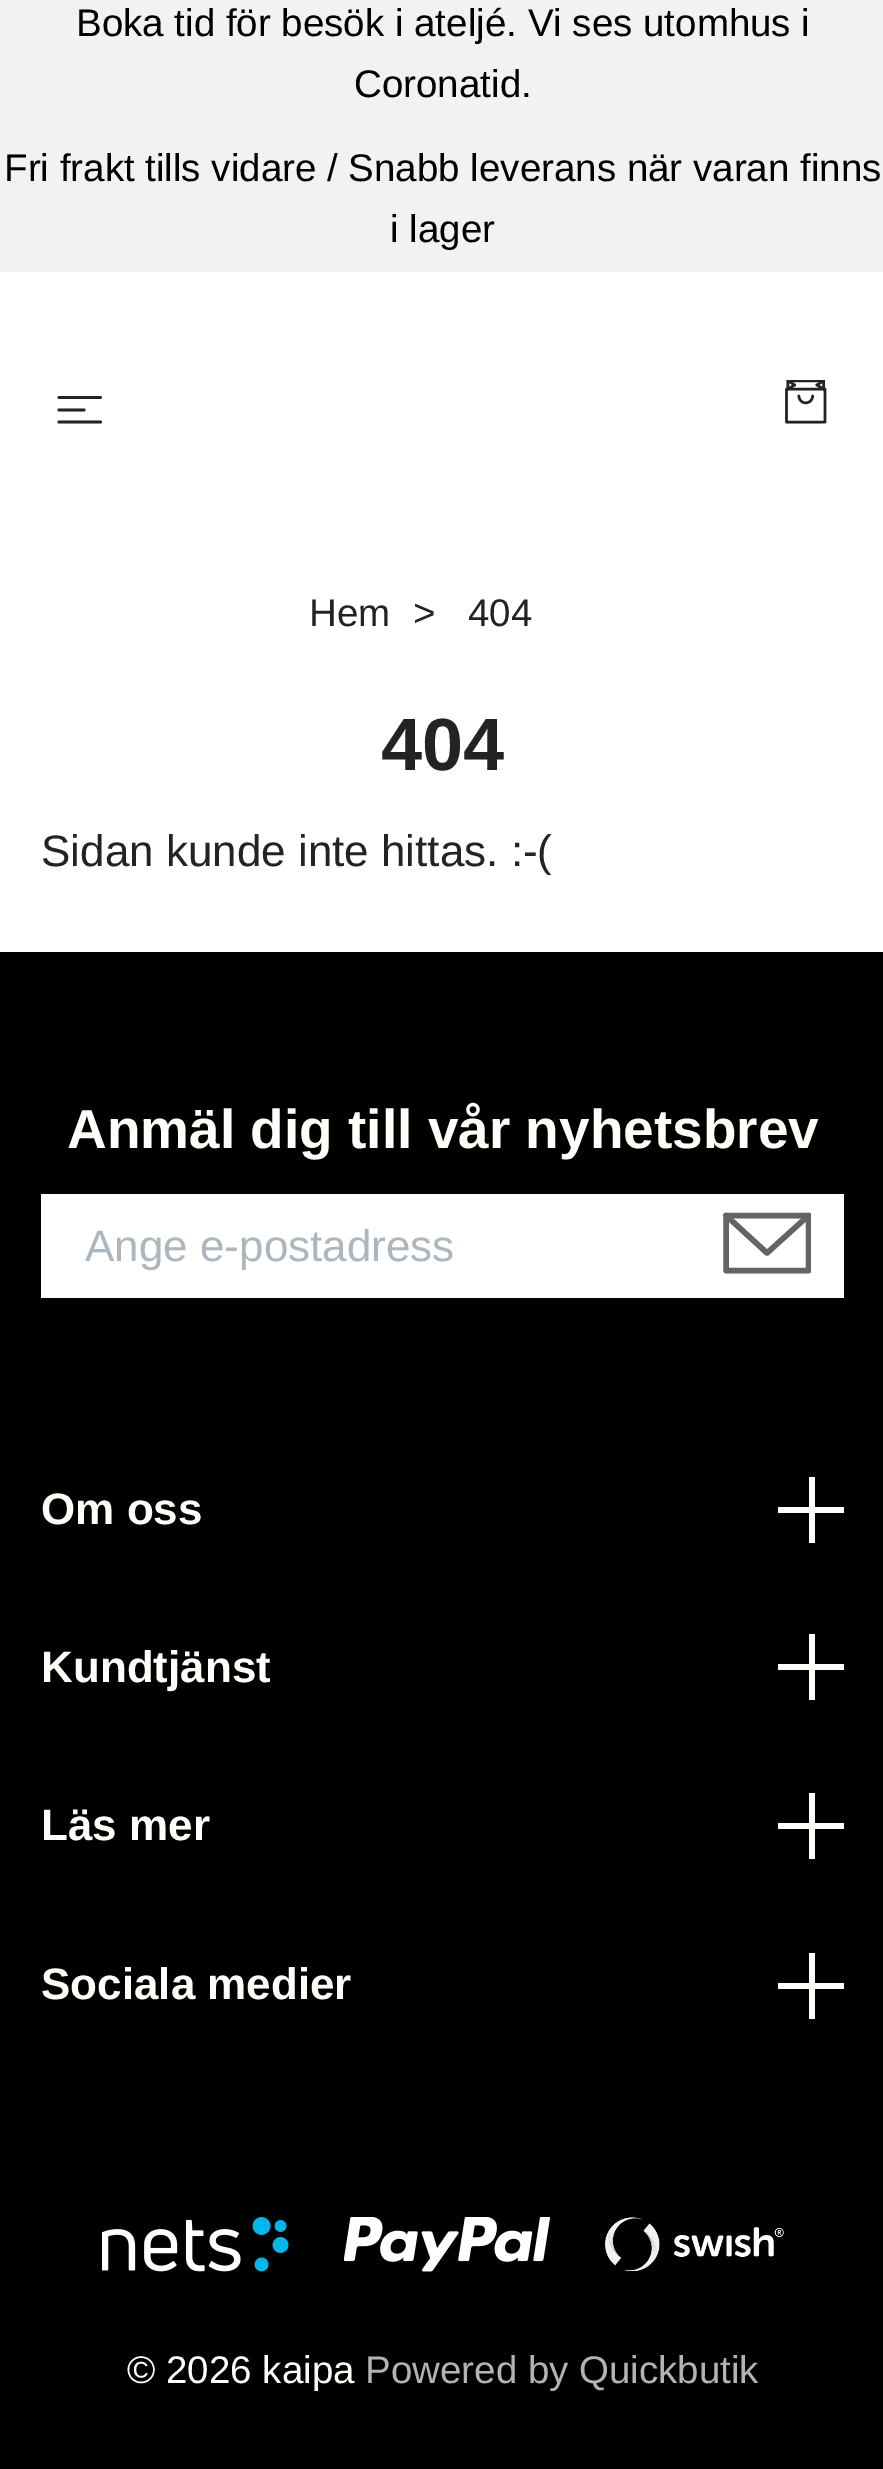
%!PS-Adobe-3.0
%%BoundingBox: 0 0 883 2469
%%LanguageLevel: 3
%%Pages: 1
%%EndComments
%%BeginProlog
/m { moveto } bind def
/l { lineto } bind def
/h { closepath } bind def
/S { stroke } bind def
/q { gsave } bind def
/Q { grestore } bind def
/w { setlinewidth } bind def
/fn { [ exch dup neg 0 0 3 -1 roll 0 0 ] selectfont } def
/tx { moveto show } def
/bx { rectfill } def
/im { 5 dict begin { /h /w /y /x /name } { exch def } forall
  gsave x y translate w h scale
  w h 8 [w 0 0 h 0 0] name (r) file false 3 colorimage grestore end } def
%%EndProlog
%%BeginSetup
<< /PageSize [883 2469] >> setpagedevice
%%EndSetup
%%Page: 1 1
0 2469 translate 1 -1 scale
4 setmiterlimit
1 setgray
0 0 883 2469 bx
0.949 setgray
0 0 883 272 bx
/LiberationSans-Regular 38.5 fn
0 setgray
(Boka tid för besök i ateljé. Vi ses utomhus i) 76 36 tx
(Coronatid.) 354 97 tx
(Fri frakt tills vidare / Snabb leverans när varan finns) 4 181 tx
(i lager) 390 242 tx
0.137 setgray
2.8 w
1 setlinecap
1 setlinejoin
59 397.5 m 100.5 397.5 l 59 410 m 84 410 l 59 422 m 100.5 422 l S
(image0.raw) 785 380 42 44 im
(Hem) 309 626 tx
(>) 413 626 tx
(404) 468 626 tx
/LiberationSans-Bold 74 fn
(404) 381 770 tx
/LiberationSans-Regular 44 fn
(Sidan kunde inte hittas. :-\() 41 866 tx
0 setgray
0 952 883 1517 bx
/LiberationSans-Bold 55 fn
1 1 0.98 setrgbcolor
(Anmäl dig till vår nyhetsbrev) 67 1148 tx
1 setgray
41 1194 803 104 bx
/LiberationSans-Regular 44 fn
0.678 0.71 0.741 setrgbcolor
(Ange e-postadress) 85 1261 tx
q
723 1199 88 88 rectclip
0.392 setgray
5.5 w
726 1215.5 m 767 1253 l 808.5 1215.5 l S
726 1215.5 m 808.5 1215.5 l 808.5 1270.5 l 726 1270.5 l h S
Q
/LiberationSans-Bold 44 fn
1 1 0.98 setrgbcolor
(Om oss) 41 1524 tx
809 1477 6 66 bx
778 1507 66 6 bx
(Kundtjänst) 41 1682 tx
809 1634 6 66 bx
778 1664 66 6 bx
(Läs mer) 41 1840 tx
809 1793 6 66 bx
778 1823 66 6 bx
(Sociala medier) 41 1999 tx
809 1953 6 66 bx
778 1983 66 6 bx
(image1.raw) 102 2217 187 55 im
(image2.raw) 344 2217 206 55 im
(image3.raw) 605 2217 179 54 im
/LiberationSans-Regular 38.5 fn
(© 2026 kaipa) 127 2383 tx
0.702 0.702 0.686 setrgbcolor
(Powered by Quickbutik) 365 2383 tx
showpage
%%EOF
